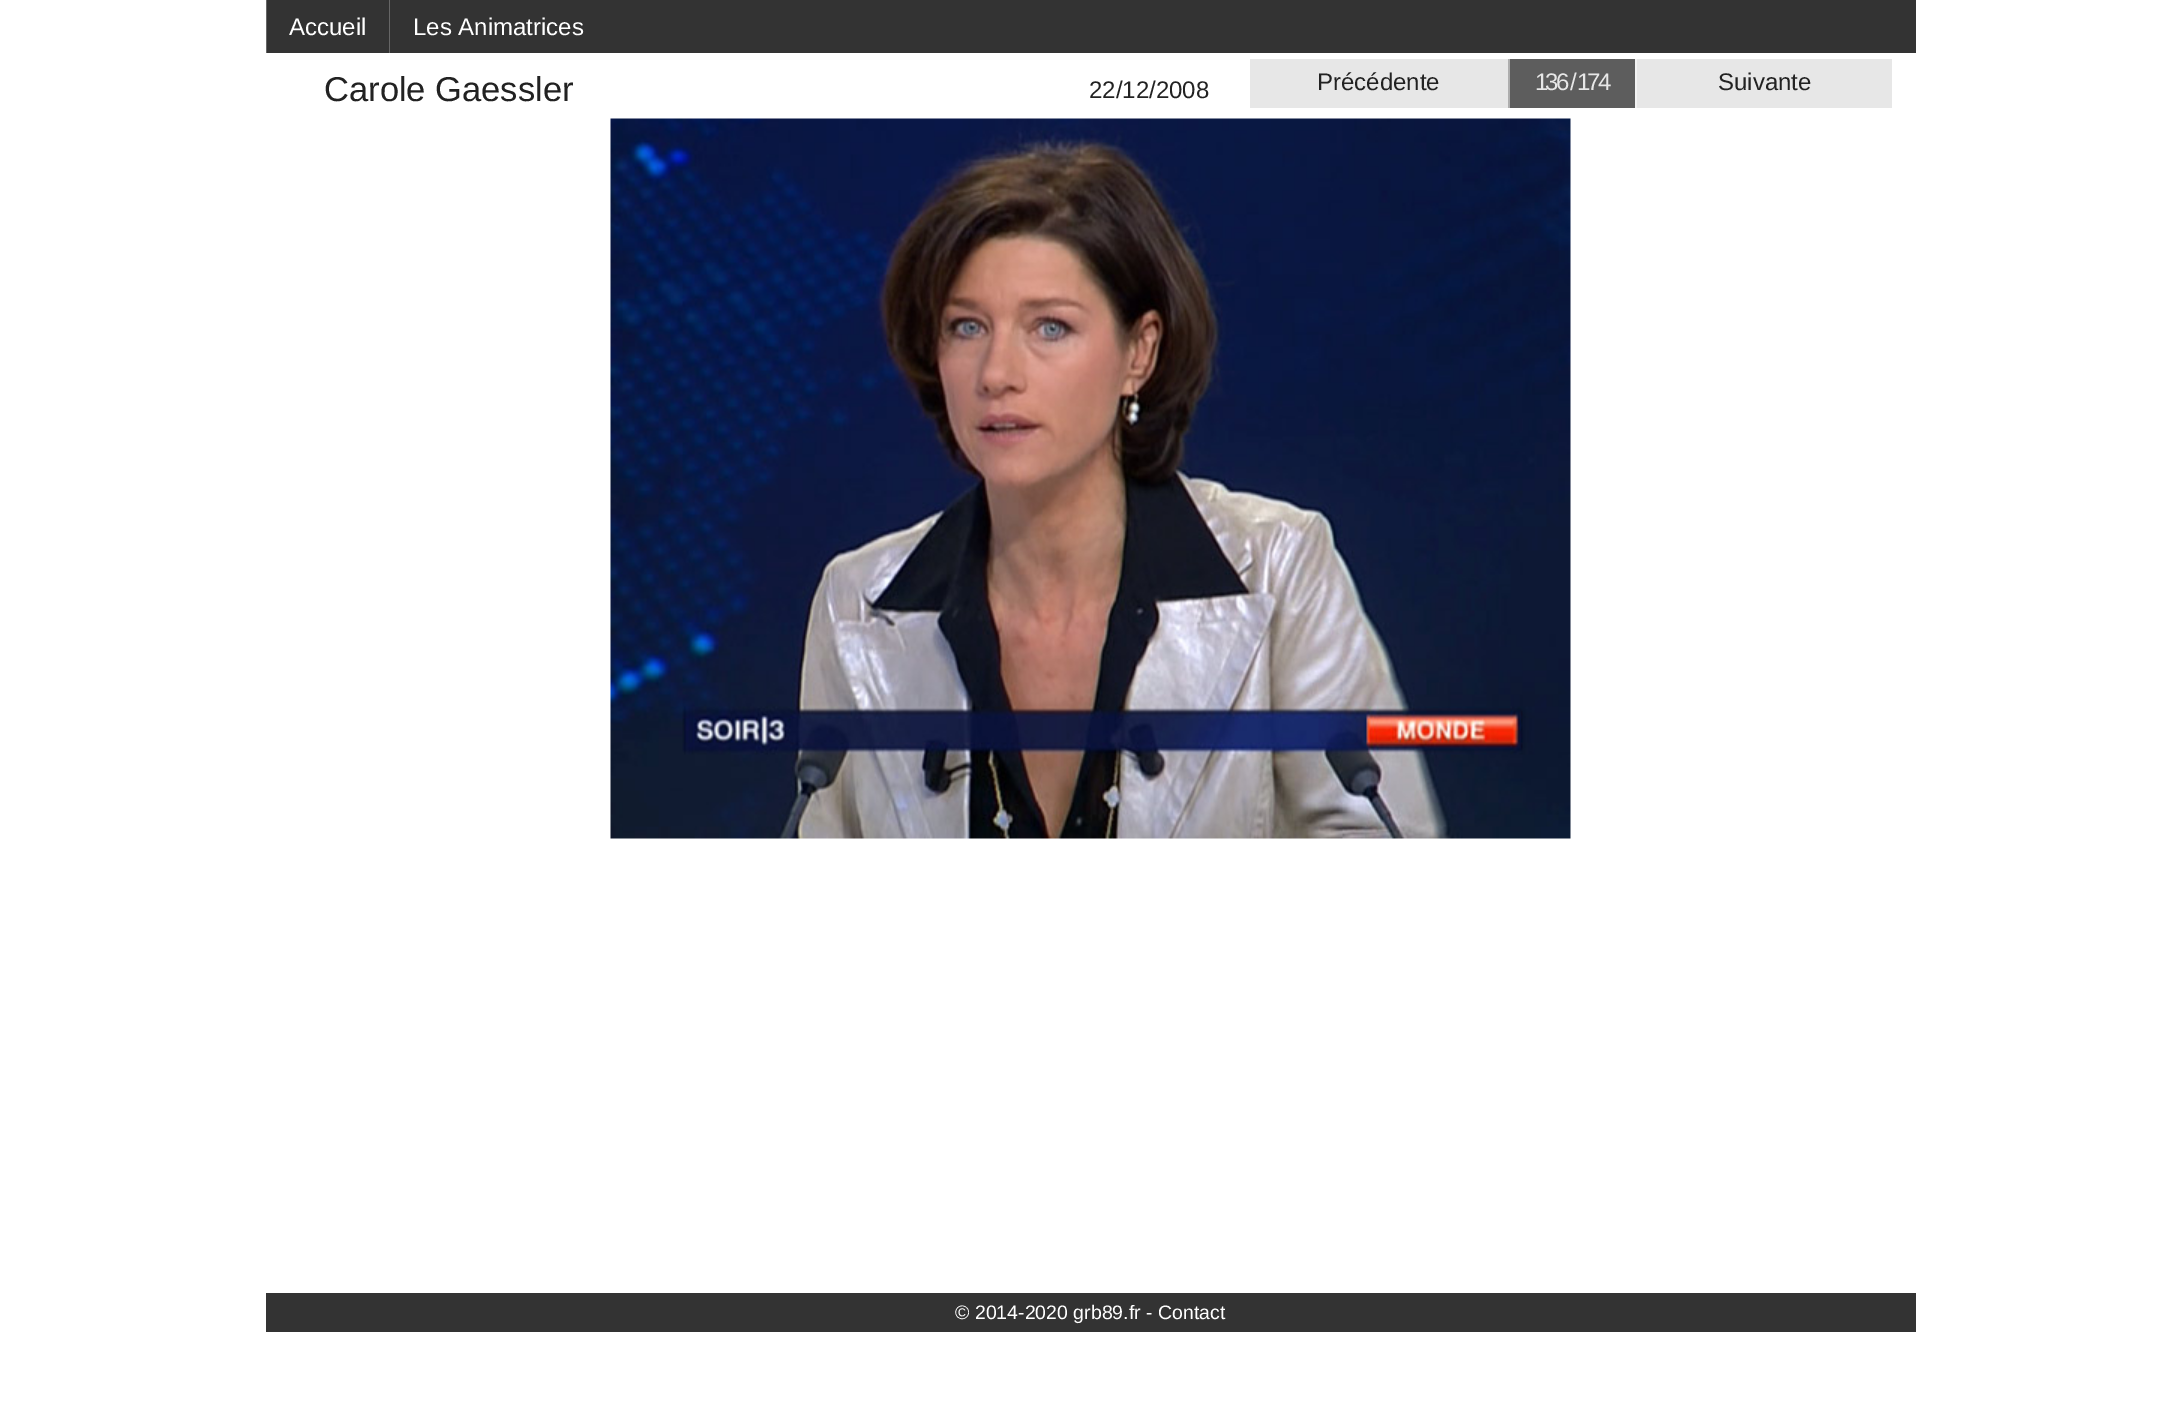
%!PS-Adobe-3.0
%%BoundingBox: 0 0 2179 1420
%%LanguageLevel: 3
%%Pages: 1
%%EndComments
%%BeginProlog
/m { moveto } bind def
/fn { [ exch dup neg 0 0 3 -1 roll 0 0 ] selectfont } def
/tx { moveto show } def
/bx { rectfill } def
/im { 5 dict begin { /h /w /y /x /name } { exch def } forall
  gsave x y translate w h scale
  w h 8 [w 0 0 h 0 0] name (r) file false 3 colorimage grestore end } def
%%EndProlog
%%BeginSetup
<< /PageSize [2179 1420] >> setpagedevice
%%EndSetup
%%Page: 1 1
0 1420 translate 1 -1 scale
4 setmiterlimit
1 setgray
0 0 2179 1420 bx
0.2 setgray
390 0 1526 53 bx
0.4 setgray
266 0 1 53 bx
0.2 setgray
267 0 122 53 bx
/LiberationSans-Regular 24 fn
1 setgray
(Accueil) 289 35 tx
0.4 setgray
389 0 1 53 bx
1 setgray
(Les Animatrices) 413 35 tx
/LiberationSans-Regular 34.5 fn
0.133 setgray
(Carole Gaessler) 324 101 tx
/LiberationSans-Regular 24 fn
(22/12/2008) 1089 98 tx
0.906 setgray
1250 59 258 49 bx
0.133 setgray
(Précédente) 1317 90 tx
0.365 setgray
1510 59 125 49 bx
0.682 setgray
1508 59 2 49 bx
0.906 setgray
1535 90 m -3 0 (136 / 174) ashow
1637 59 255 49 bx
0.953 setgray
1635 59 2 49 bx
0.133 setgray
(Suivante) 1718 90 tx
(image0.raw) 610 118 961 721 im
0.2 setgray
266 1293 1650 39 bx
/LiberationSans-Regular 19.5 fn
1 setgray
(© 2014-2020 grb89.fr - Contact) 955 1319 tx
showpage
%%EOF
